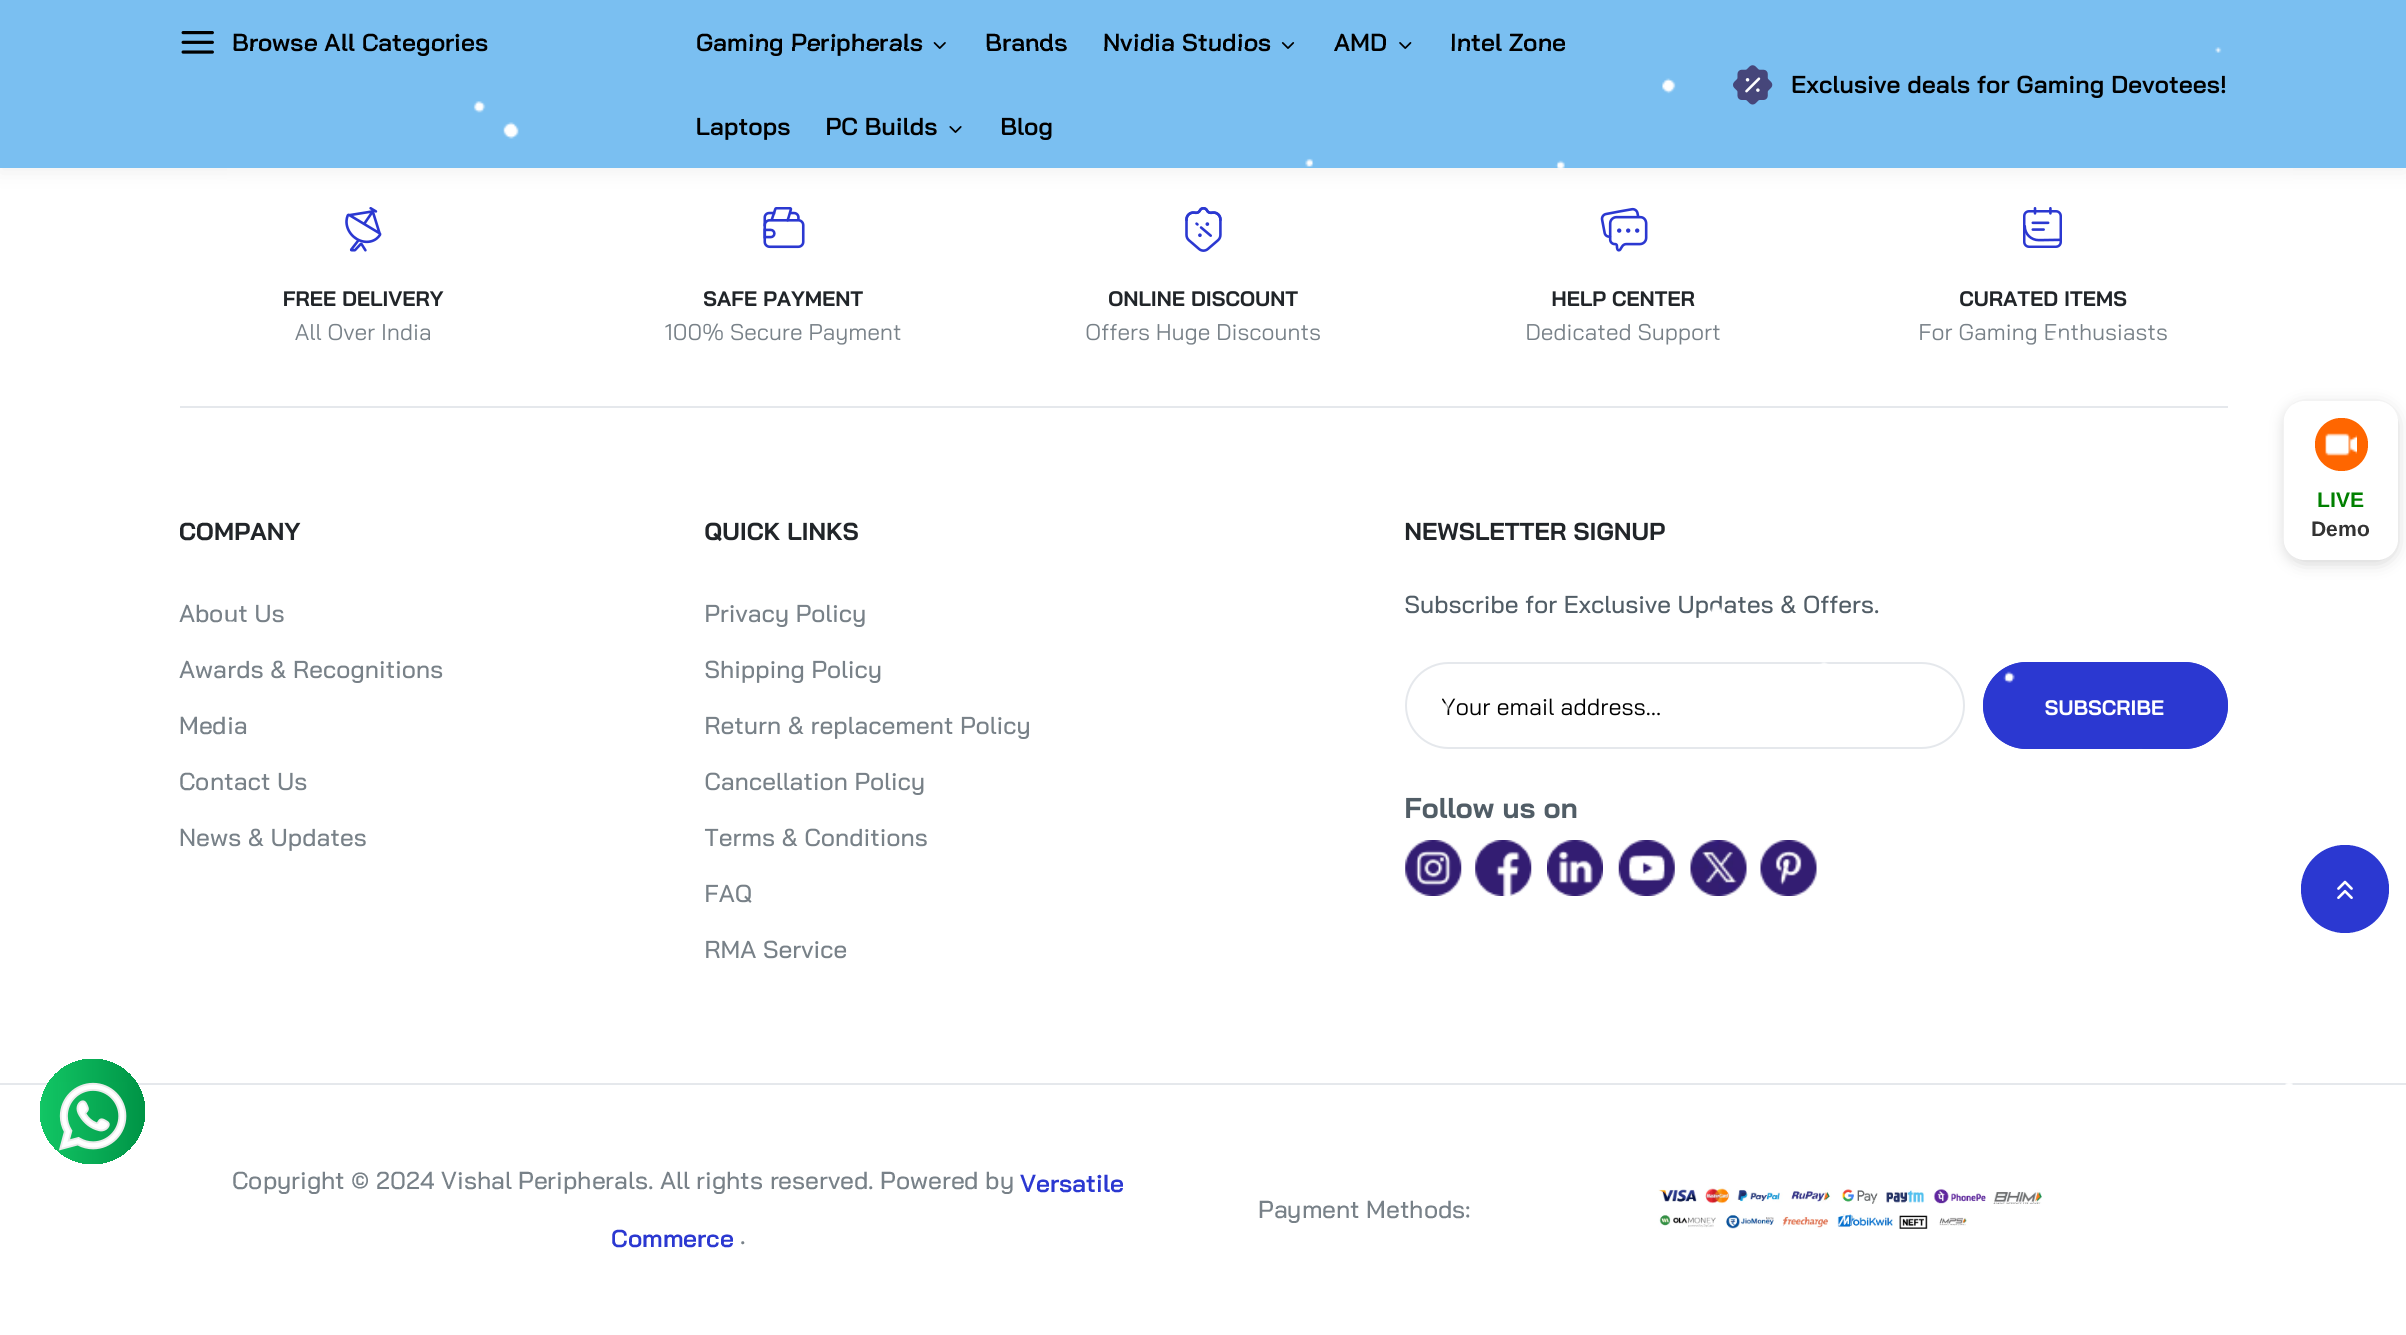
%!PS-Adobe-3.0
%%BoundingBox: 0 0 2406 1335
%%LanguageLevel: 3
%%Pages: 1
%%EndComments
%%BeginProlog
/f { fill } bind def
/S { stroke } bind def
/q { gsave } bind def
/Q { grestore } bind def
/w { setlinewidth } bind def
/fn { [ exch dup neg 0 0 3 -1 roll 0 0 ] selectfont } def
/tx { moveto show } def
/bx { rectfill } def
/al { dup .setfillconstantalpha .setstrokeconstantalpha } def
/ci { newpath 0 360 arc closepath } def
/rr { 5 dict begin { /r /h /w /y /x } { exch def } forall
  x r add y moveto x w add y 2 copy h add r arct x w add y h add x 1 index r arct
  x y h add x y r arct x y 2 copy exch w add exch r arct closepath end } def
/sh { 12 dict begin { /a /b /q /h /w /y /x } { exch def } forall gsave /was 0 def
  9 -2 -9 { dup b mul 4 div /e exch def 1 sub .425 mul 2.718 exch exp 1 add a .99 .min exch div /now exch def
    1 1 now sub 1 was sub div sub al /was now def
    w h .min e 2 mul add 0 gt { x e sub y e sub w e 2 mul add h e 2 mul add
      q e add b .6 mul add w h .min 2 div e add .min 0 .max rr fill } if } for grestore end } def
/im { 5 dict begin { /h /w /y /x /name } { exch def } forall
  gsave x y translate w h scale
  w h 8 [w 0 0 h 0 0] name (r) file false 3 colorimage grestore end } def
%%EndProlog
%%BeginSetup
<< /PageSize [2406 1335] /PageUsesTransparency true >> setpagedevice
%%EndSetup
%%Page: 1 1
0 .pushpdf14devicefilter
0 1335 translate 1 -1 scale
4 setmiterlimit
1 setgray
0 0 2406 1335 bx
0 setgray
0 5 2406 168 0 9 0.05 sh
0.478 0.749 0.945 setrgbcolor
0 0 2406 168 bx
(image0.raw) 181 31 33 23 im
/BaiJamjuree-SemiBold 24.5 fn
0 setgray
(Browse All Categories) 232 51 tx
(Gaming Peripherals) 696 51 tx
(image1.raw) 933 42 13 7 im
(Brands) 985 51 tx
(Nvidia Studios) 1103 51 tx
(image2.raw) 1281 42 14 7 im
(AMD) 1334 51 tx
(image3.raw) 1399 42 13 7 im
(Intel Zone) 1450 51 tx
(Laptops) 696 135 tx
(PC Builds) 825 135 tx
(image4.raw) 949 126 13 7 im
(Blog) 1000 135 tx
(image5.raw) 1733 65 40 40 im
(Exclusive deals for Gaming Devotees!) 1791 93 tx
(image6.raw) 345 207 37 45 im
/BaiJamjuree-Bold 21 fn
0.129 0.145 0.161 setrgbcolor
(FREE DELIVERY) 283 306 tx
/BaiJamjuree-Regular 22.75 fn
0.471 0.506 0.533 setrgbcolor
(All Over India) 295 340 tx
(image7.raw) 763 207 42 42 im
/BaiJamjuree-Bold 21 fn
0.129 0.145 0.161 setrgbcolor
(SAFE PAYMENT) 703 306 tx
/BaiJamjuree-Regular 22.75 fn
0.471 0.506 0.533 setrgbcolor
(100% Secure Payment) 665 340 tx
(image8.raw) 1185 207 37 45 im
/BaiJamjuree-Bold 21 fn
0.129 0.145 0.161 setrgbcolor
(ONLINE DISCOUNT) 1108 306 tx
/BaiJamjuree-Regular 22.75 fn
0.471 0.506 0.533 setrgbcolor
(Offers Huge Discounts) 1085 340 tx
(image9.raw) 1600 207 48 45 im
/BaiJamjuree-Bold 21 fn
0.129 0.145 0.161 setrgbcolor
(HELP CENTER) 1551 306 tx
/BaiJamjuree-Regular 22.75 fn
0.471 0.506 0.533 setrgbcolor
(Dedicated Support) 1525 340 tx
(image10.raw) 2023 207 39 41 im
/BaiJamjuree-Bold 21 fn
0.129 0.145 0.161 setrgbcolor
(CURATED ITEMS) 1959 306 tx
/BaiJamjuree-Regular 22.75 fn
0.471 0.506 0.533 setrgbcolor
(For Gaming Enthusiasts) 1918 340 tx
0.898 0.91 0.925 setrgbcolor
180 406 2048 2 bx
/BaiJamjuree-Bold 24.5 fn
0.129 0.145 0.161 setrgbcolor
(COMPANY) 179 540 tx
/BaiJamjuree-Medium 24.5 fn
0.471 0.506 0.533 setrgbcolor
(About Us) 179 622 tx
(Awards & Recognitions) 179 678 tx
(Media) 179 734 tx
(Contact Us) 179 790 tx
(News & Updates) 179 846 tx
/BaiJamjuree-Bold 24.5 fn
0.129 0.145 0.161 setrgbcolor
(QUICK LINKS) 704 540 tx
/BaiJamjuree-Medium 24.5 fn
0.471 0.506 0.533 setrgbcolor
(Privacy Policy) 704 622 tx
(Shipping Policy) 704 678 tx
(Return & replacement Policy) 704 734 tx
(Cancellation Policy) 704 790 tx
(Terms & Conditions) 704 846 tx
(FAQ) 704 902 tx
(RMA Service) 704 958 tx
/BaiJamjuree-Bold 24.5 fn
0.129 0.145 0.161 setrgbcolor
(NEWSLETTER SIGNUP) 1404 540 tx
/BaiJamjuree-Medium 24.5 fn
0.318 0.365 0.4 setrgbcolor
(Subscribe for Exclusive Updates & Offers.) 1404 613 tx
0.898 0.91 0.925 setrgbcolor
2 w
1406 663 558 85 42.5 rr S
/BaiJamjuree-Regular 23.25 fn
0 setgray
(Your email address...) 1441 715 tx
0.169 0.22 0.82 setrgbcolor
1984 663 243 85 42.5 rr q f Q
S
/BaiJamjuree-Bold 21 fn
1 setgray
(SUBSCRIBE) 2045 715 tx
/BaiJamjuree-Bold 28.5 fn
0.318 0.365 0.4 setrgbcolor
(Follow us on) 1404 818 tx
(image11.raw) 1405 840 57 56 im
(image12.raw) 1475 840 57 56 im
(image13.raw) 1547 840 56 56 im
(image14.raw) 1618 840 57 56 im
(image15.raw) 1690 840 57 56 im
(image16.raw) 1760 840 57 56 im
0.898 0.91 0.925 setrgbcolor
0 1083 2406 2 bx
/BaiJamjuree-Medium 24.5 fn
0.471 0.506 0.533 setrgbcolor
(Copyright © 2024 Vishal Peripherals. All rights reserved. Powered by) 232 1189 tx
/BaiJamjuree-SemiBold 24.5 fn
0.169 0.22 0.82 setrgbcolor
(Versatile) 1020 1192 tx
(Commerce) 611 1247 tx
/BaiJamjuree-Medium 24.5 fn
0.471 0.506 0.533 setrgbcolor
(.) 740 1244 tx
(Payment Methods:) 1258 1218 tx
(image17.raw) 1658 1186 384 43 im
0.169 0.22 0.82 setrgbcolor
2345 889 44 ci f
(image18.raw) 2337 880 16 19 im
0 setgray
2284 404 114 160 21 7 0.15 sh
1 setgray
2284 401 114 159 21 rr f
(image19.raw) 227 47 2066 1038 im
1 0.4 0 setrgbcolor
2341.5 444.5 26.5 ci f
(image20.raw) 2325 433 32 23 im
/LiberationSans-Bold 21 fn
0 0.502 0 setrgbcolor
(LIVE) 2317 507 tx
0.2 setgray
(Demo) 2311 536 tx
q 92.5 1111.5 52.5 ci clip newpath
<< /ShadingType 2 /ColorSpace /DeviceRGB /Coords [40 1111 145 1111] /Extend [true true] /Function << /FunctionType 3 /Domain [0 1] /Functions [<< /FunctionType 2 /Domain [0 1] /C0 [0.071 0.776 0.396] /C1 [0.071 0.776 0.396] /N 1 >> << /FunctionType 2 /Domain [0 1] /C0 [0.071 0.776 0.396] /C1 [0 0.58 0.275] /N 1 >>] /Bounds [0.01] /Encode [0 1 0 1] >> >> shfill Q
(image21.raw) 58 1082 69 69 im
.poppdf14devicefilter showpage
%%EOF
